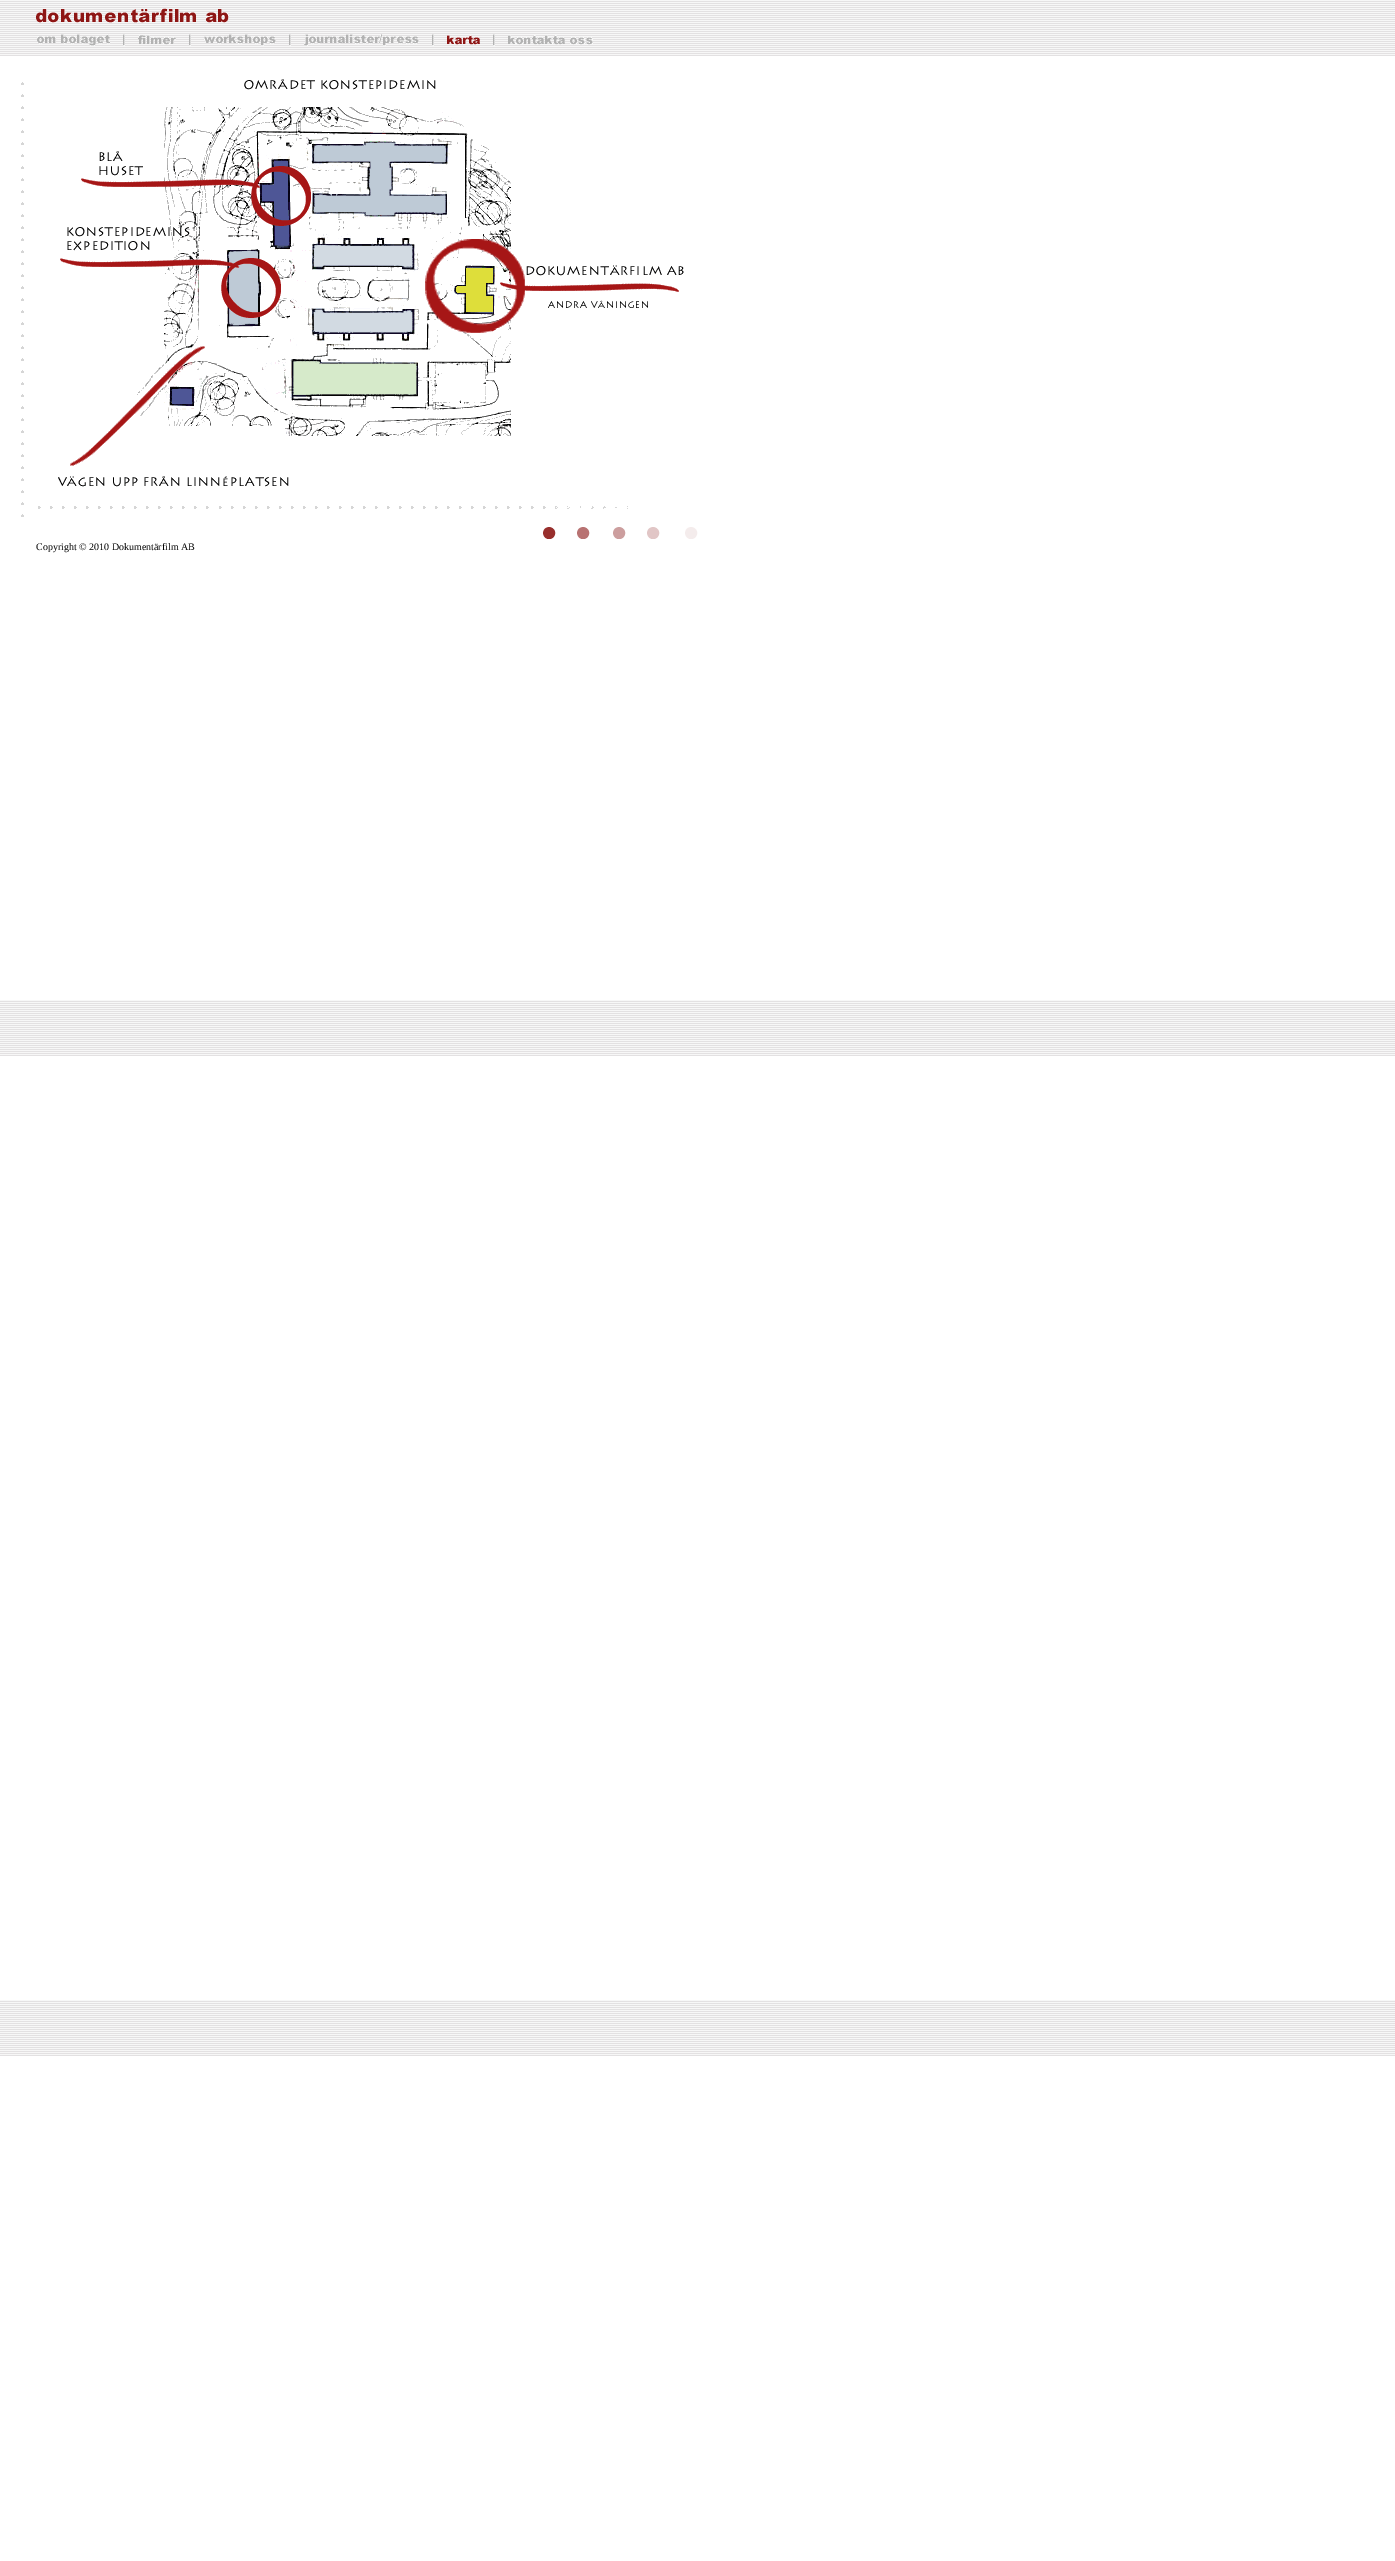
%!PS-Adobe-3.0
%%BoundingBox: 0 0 1395 2561
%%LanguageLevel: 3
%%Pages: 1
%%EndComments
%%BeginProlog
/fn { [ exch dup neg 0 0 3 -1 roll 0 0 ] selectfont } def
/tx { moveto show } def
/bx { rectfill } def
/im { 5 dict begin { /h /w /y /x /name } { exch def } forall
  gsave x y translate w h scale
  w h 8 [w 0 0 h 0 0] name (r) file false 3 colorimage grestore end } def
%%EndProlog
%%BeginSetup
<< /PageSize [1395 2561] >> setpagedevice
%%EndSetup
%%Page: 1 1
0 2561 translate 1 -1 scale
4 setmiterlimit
1 setgray
0 0 1395 2561 bx
(image0.raw) 0 0 1395 2056 im
(image1.raw) 36 8 193 15 im
(image2.raw) 37 34 73 12 im
(image3.raw) 123 34 2 12 im
(image4.raw) 138 35 38 10 im
(image3.raw) 189 34 2 12 im
(image5.raw) 204 34 72 12 im
(image3.raw) 289 34 2 12 im
(image6.raw) 304 34 115 12 im
(image3.raw) 432 34 2 12 im
(image7.raw) 447 35 33 10 im
(image3.raw) 493 34 2 12 im
(image8.raw) 508 35 85 10 im
(image9.raw) 21 82 3 435 im
(image10.raw) 58 79 626 408 im
(image11.raw) 38 506 590 3 im
(image12.raw) 543 527 155 12 im
/LiberationSerif-Regular 10 fn
0 setgray
(Copyright © 2010 Dokumentärfilm AB) 36 550 tx
showpage
%%EOF
